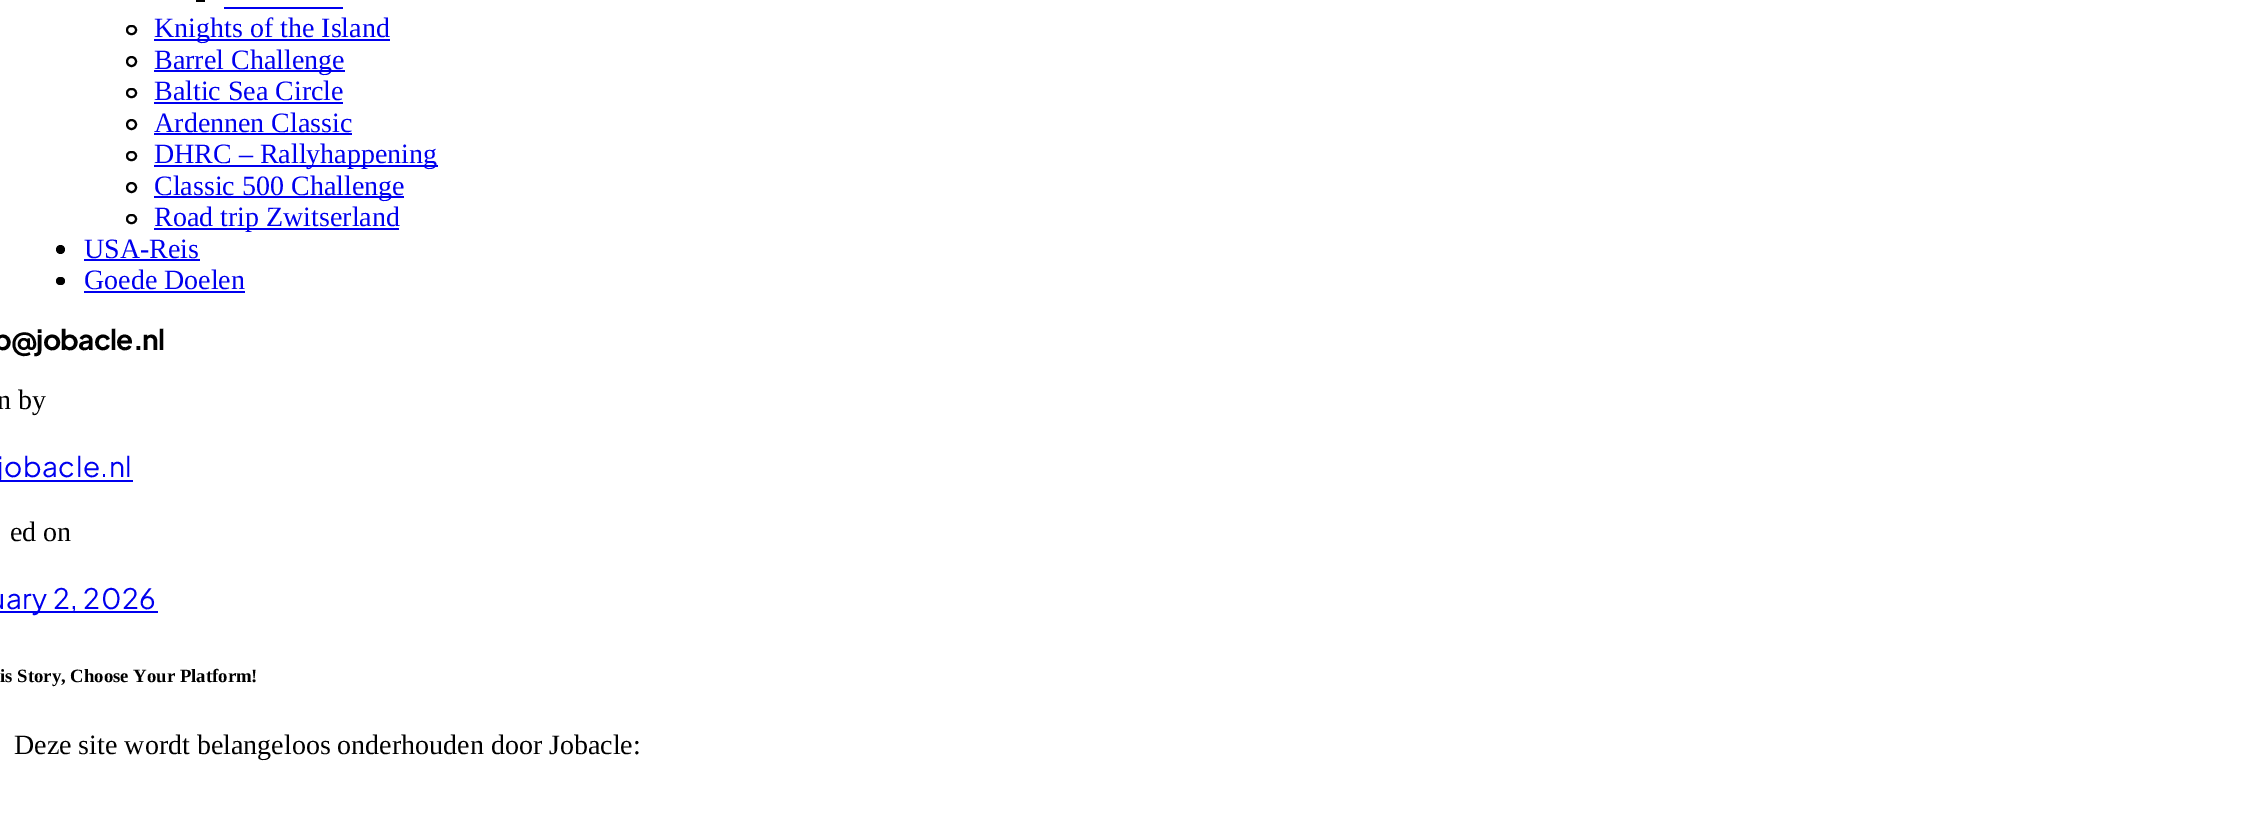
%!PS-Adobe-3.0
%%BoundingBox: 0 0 2264 824
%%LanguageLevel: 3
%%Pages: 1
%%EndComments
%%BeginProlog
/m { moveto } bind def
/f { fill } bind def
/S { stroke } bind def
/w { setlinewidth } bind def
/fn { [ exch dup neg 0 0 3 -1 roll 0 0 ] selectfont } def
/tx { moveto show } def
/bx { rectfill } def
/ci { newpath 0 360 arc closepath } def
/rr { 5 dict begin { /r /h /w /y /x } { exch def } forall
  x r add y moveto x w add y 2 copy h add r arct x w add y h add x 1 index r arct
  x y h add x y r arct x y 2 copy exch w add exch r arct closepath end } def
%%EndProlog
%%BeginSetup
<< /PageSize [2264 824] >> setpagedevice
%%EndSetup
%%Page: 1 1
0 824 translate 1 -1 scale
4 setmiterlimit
1 setgray
0 0 2264 824 bx
0 setgray
196 0 9 2 bx
0 0 0.933 setrgbcolor
224 7 119 2 bx
0 setgray
2 w
127 26 9 8 4 rr S
0 0 0.933 setrgbcolor
154 39 236 2 bx
/LiberationSerif-Regular 28 fn
(Knights of the Island) 154 37 tx
0 setgray
131.5 61.5 4.5 ci S
0 0 0.933 setrgbcolor
154 70 191 2 bx
(Barrel Challenge) 154 69 tx
0 setgray
127 89 9 8 4 rr S
0 0 0.933 setrgbcolor
(Baltic Sea Circle) 154 100 tx
154 102 189 2 bx
0 setgray
131.5 124.5 4.5 ci S
0 0 0.933 setrgbcolor
(Ardennen Classic) 154 132 tx
154 133 198 2 bx
0 setgray
127 152 9 8 4 rr S
0 0 0.933 setrgbcolor
154 165 284 2 bx
(DHRC – Rallyhappening) 154 163 tx
0 setgray
131.5 187.5 4.5 ci S
0 0 0.933 setrgbcolor
154 196 250 2 bx
(Classic 500 Challenge) 154 195 tx
0 setgray
127 215 9 8 4 rr S
0 0 0.933 setrgbcolor
154 228 245 2 bx
(Road trip Zwitserland) 154 226 tx
0 setgray
60.5 249.5 4.5 ci f
0 0 0.933 setrgbcolor
(USA-Reis) 84 258 tx
84 259 116 2 bx
0 setgray
56 277 9 8 4 rr f
0 0 0.933 setrgbcolor
(Goede Doelen) 84 289 tx
84 291 161 2 bx
/PlusJakartaSans-Bold 28 fn
0 setgray
-7 350 m -0.75 0 (b@jobacle.nl) ashow
/LiberationSerif-Regular 28 fn
(n by) -3 409 tx
0 0 0.933 setrgbcolor
0 480 133 2 bx
/PlusJakartaSans-Regular 28 fn
-3 477 m 0.5 0 (jobacle.nl) ashow
/LiberationSerif-Regular 28 fn
0 setgray
(ed on) 10 541 tx
0 0 0.933 setrgbcolor
0 611 158 2 bx
/PlusJakartaSans-Regular 28 fn
-11 609 m 0.5 0 (uary 2, 2026) ashow
/LiberationSerif-Bold 18.75 fn
0 setgray
(is Story, Choose Your Platform!) 0 682 tx
/LiberationSerif-Regular 28 fn
(Deze site wordt belangeloos onderhouden door Jobacle:) 14 754 tx
showpage
%%EOF
